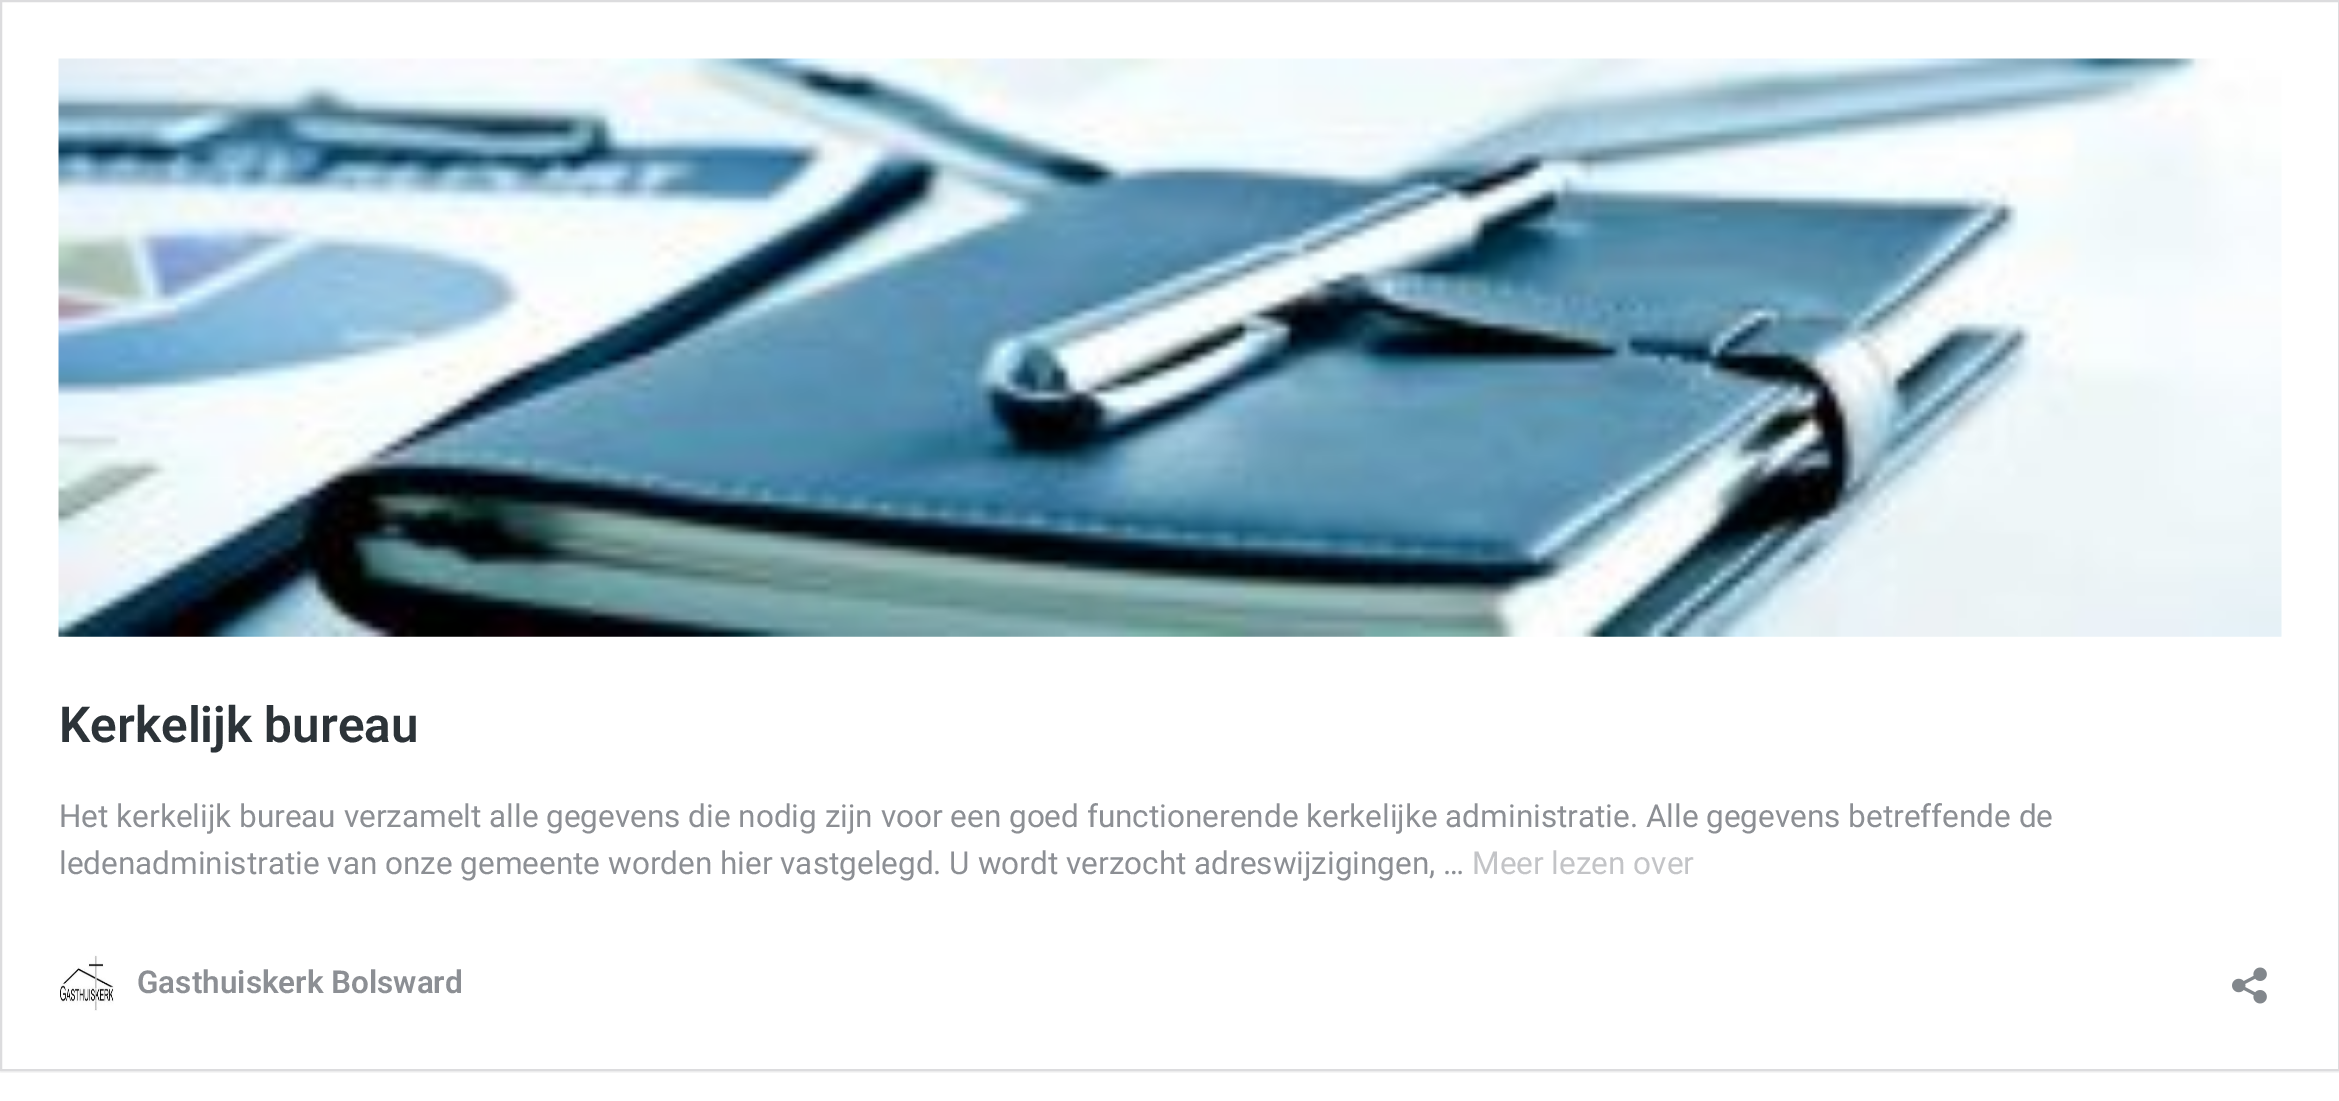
%!PS-Adobe-3.0
%%BoundingBox: 0 0 2339 1101
%%LanguageLevel: 3
%%Pages: 1
%%EndComments
%%BeginProlog
/q { gsave } bind def
/Q { grestore } bind def
/w { setlinewidth } bind def
/fn { [ exch dup neg 0 0 3 -1 roll 0 0 ] selectfont } def
/tx { moveto show } def
/bx { rectfill } def
/al { dup .setfillconstantalpha .setstrokeconstantalpha } def
/rr { 5 dict begin { /r /h /w /y /x } { exch def } forall
  x r add y moveto x w add y 2 copy h add r arct x w add y h add x 1 index r arct
  x y h add x y r arct x y 2 copy exch w add exch r arct closepath end } def
/sh { 12 dict begin { /a /b /q /h /w /y /x } { exch def } forall gsave /was 0 def
  9 -2 -9 { dup b mul 4 div /e exch def 1 sub .425 mul 2.718 exch exp 1 add a .99 .min exch div /now exch def
    1 1 now sub 1 was sub div sub al /was now def
    w h .min e 2 mul add 0 gt { x e sub y e sub w e 2 mul add h e 2 mul add
      q e add b .6 mul add w h .min 2 div e add .min 0 .max rr fill } if } for grestore end } def
/im { 5 dict begin { /h /w /y /x /name } { exch def } forall
  gsave x y translate w h scale
  w h 8 [w 0 0 h 0 0] name (r) file false 3 colorimage grestore end } def
%%EndProlog
%%BeginSetup
<< /PageSize [2339 1101] /PageUsesTransparency true >> setpagedevice
%%EndSetup
%%Page: 1 1
0 .pushpdf14devicefilter
0 1101 translate 1 -1 scale
4 setmiterlimit
1 setgray
0 0 2339 1101 bx
q
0 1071 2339 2 rectclip
0 setgray
0 2 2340 1071 0 1 0.05 sh
Q
0.863 0.863 0.871 setrgbcolor
2 w
1 1 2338 1069 rectstroke
(image0.raw) 58 58 2224 579 im
/Roboto-SemiBold 49.5 fn
0.173 0.2 0.22 setrgbcolor
(Kerkelijk bureau) 59 742 tx
/Roboto-Regular 31.5 fn
0.549 0.561 0.58 setrgbcolor
(Het kerkelijk bureau verzamelt alle gegevens die nodig zijn voor een goed functionerende kerkelijke administratie. Alle gegevens betreffende de) 59 827 tx
(ledenadministratie van onze gemeente worden hier vastgelegd. U wordt verzocht adreswijzigingen, …) 59 874 tx
0.765 0.769 0.78 setrgbcolor
(Meer lezen over) 1472 874 tx
(image1.raw) 60 955 54 56 im
/Roboto-SemiBold 31.5 fn
0.549 0.561 0.58 setrgbcolor
(Gasthuiskerk Bolsward) 137 993 tx
(image2.raw) 2232 967 35 37 im
.poppdf14devicefilter showpage
%%EOF
